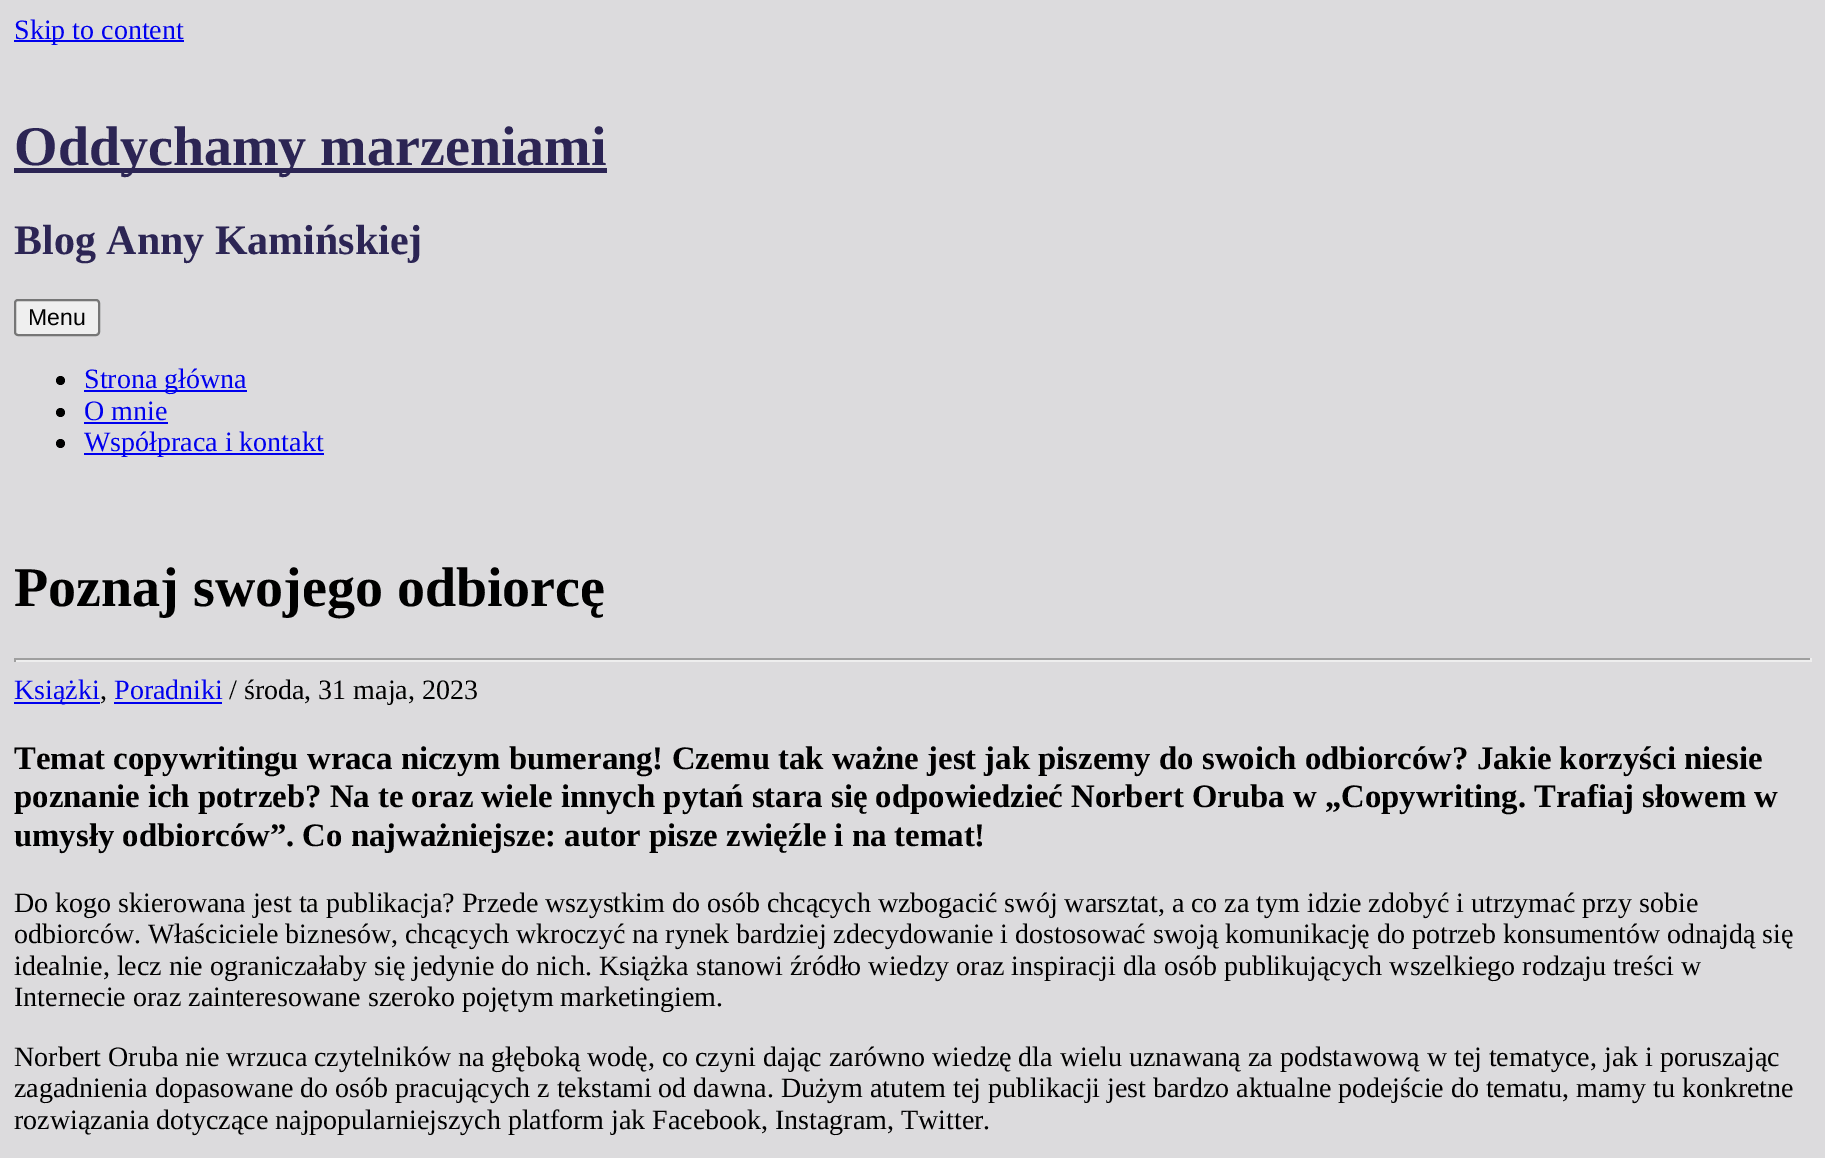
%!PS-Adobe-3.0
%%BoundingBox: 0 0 1825 1158
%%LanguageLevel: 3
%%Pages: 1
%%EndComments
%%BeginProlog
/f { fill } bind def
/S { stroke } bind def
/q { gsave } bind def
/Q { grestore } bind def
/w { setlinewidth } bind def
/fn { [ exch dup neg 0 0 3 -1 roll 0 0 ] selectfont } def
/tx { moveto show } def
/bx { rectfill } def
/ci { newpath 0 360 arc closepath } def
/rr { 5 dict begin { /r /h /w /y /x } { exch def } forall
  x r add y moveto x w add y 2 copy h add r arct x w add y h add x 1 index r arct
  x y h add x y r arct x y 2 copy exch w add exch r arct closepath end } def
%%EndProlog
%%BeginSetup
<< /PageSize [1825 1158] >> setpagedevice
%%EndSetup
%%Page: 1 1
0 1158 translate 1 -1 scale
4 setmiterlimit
0.863 0.859 0.867 setrgbcolor
0 0 1825 1158 bx
0 0 0.933 setrgbcolor
14 40 170 2 bx
/LiberationSerif-Regular 28 fn
(Skip to content) 14 39 tx
0.173 0.145 0.329 setrgbcolor
14 168 593 5 bx
/LiberationSerif-Bold 56 fn
(Oddychamy marzeniami) 14 165 tx
/LiberationSerif-Bold 42 fn
(Blog Anny Kamińskiej) 14 254 tx
0.937 setgray
15 300 84 35 3 rr q f Q
0.463 setgray
2 w
S
/LiberationSans-Regular 23 fn
0 setgray
(Menu) 28 325 tx
60.5 380.5 4.5 ci f
0 0 0.933 setrgbcolor
84 390 163 2 bx
/LiberationSerif-Regular 28 fn
(Strona główna) 84 388 tx
0 setgray
60.5 412.5 4.5 ci f
0 0 0.933 setrgbcolor
(O mnie) 84 420 tx
84 422 84 2 bx
0 setgray
60.5 443.5 4.5 ci f
0 0 0.933 setrgbcolor
84 453 240 2 bx
(Współpraca i kontakt) 84 451 tx
/LiberationSerif-Bold 56 fn
0 setgray
(Poznaj swojego odbiorcę) 14 606 tx
0.624 setgray
14 658 1797 2 bx
0.933 setgray
1810 658 2 4 bx
14 660 1797 2 bx
0.624 setgray
14 658 2 4 bx
0 0 0.933 setrgbcolor
14 702 86 2 bx
/LiberationSerif-Regular 28 fn
(Książki) 14 699 tx
0 setgray
(,) 100 699 tx
0 0 0.933 setrgbcolor
(Poradniki) 114 699 tx
114 702 108 2 bx
0 setgray
(/ środa, 31 maja, 2023) 229 699 tx
/LiberationSerif-Bold 32.75 fn
(Temat copywritingu wraca niczym bumerang! Czemu tak ważne jest jak piszemy do swoich odbiorców? Jakie korzyści niesie) 14 769 tx
(poznanie ich potrzeb? Na te oraz wiele innych pytań stara się odpowiedzieć Norbert Oruba w „Copywriting. Trafiaj słowem w) 14 807 tx
(umysły odbiorców”. Co najważniejsze: autor pisze zwięźle i na temat!) 14 846 tx
/LiberationSerif-Regular 28 fn
(Do kogo skierowana jest ta publikacja? Przede wszystkim do osób chcących wzbogacić swój warsztat, a co za tym idzie zdobyć i utrzymać przy sobie) 14 912 tx
(odbiorców. Właściciele biznesów, chcących wkroczyć na rynek bardziej zdecydowanie i dostosować swoją komunikację do potrzeb konsumentów odnajdą się) 14 943 tx
(idealnie, lecz nie ograniczałaby się jedynie do nich. Książka stanowi źródło wiedzy oraz inspiracji dla osób publikujących wszelkiego rodzaju treści w) 14 975 tx
(Internecie oraz zainteresowane szeroko pojętym marketingiem.) 14 1006 tx
(Norbert Oruba nie wrzuca czytelników na głęboką wodę, co czyni dając zarówno wiedzę dla wielu uznawaną za podstawową w tej tematyce, jak i poruszając) 14 1066 tx
(zagadnienia dopasowane do osób pracujących z tekstami od dawna. Dużym atutem tej publikacji jest bardzo aktualne podejście do tematu, mamy tu konkretne) 14 1097 tx
(rozwiązania dotyczące najpopularniejszych platform jak Facebook, Instagram, Twitter.) 14 1129 tx
showpage
%%EOF
